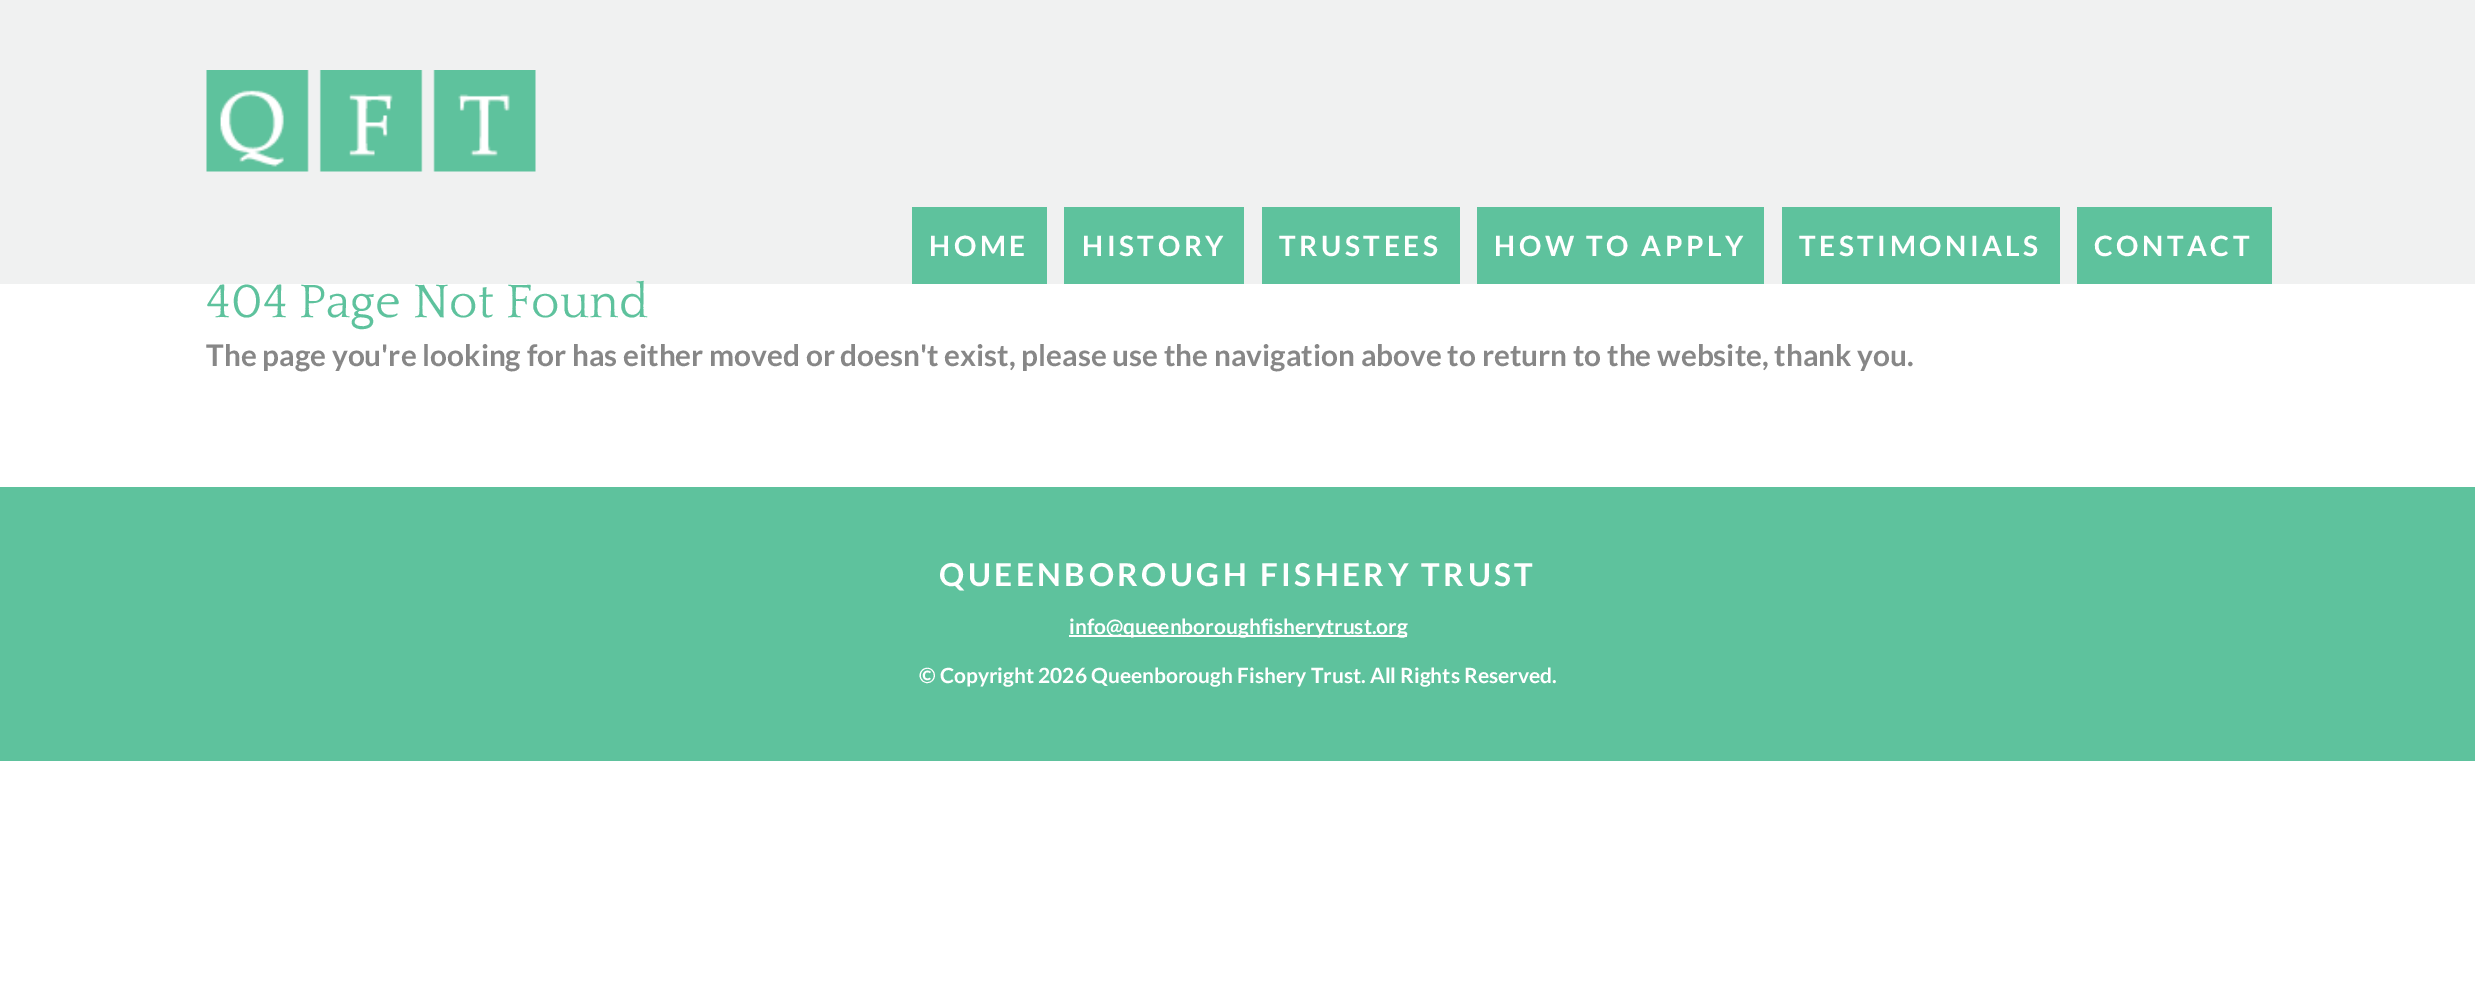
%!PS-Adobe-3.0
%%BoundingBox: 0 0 2475 985
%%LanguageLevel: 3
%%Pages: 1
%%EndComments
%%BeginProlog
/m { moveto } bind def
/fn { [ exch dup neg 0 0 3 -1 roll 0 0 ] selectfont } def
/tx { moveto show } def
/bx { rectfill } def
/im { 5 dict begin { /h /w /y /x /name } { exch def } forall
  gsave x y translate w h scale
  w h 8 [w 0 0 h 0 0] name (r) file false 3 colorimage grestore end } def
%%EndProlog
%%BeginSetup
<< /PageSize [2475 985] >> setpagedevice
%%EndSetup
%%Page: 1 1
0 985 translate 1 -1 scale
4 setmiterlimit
1 setgray
0 0 2475 985 bx
0.941 0.945 0.945 setrgbcolor
0 0 2475 284 bx
(image0.raw) 206 70 330 102 im
0.369 0.761 0.616 setrgbcolor
912 207 135 77 bx
/Lato-Bold 28 fn
1 setgray
929 256 m 3.5 0 (HOME) ashow
0.369 0.761 0.616 setrgbcolor
1064 207 180 77 bx
1 setgray
1082 256 m 3.5 0 (HISTORY) ashow
0.369 0.761 0.616 setrgbcolor
1262 207 198 77 bx
1 setgray
1279 256 m 3.5 0 (TRUSTEES) ashow
0.369 0.761 0.616 setrgbcolor
1477 207 287 77 bx
1 setgray
1494 256 m 3.5 0 (HOW TO APPLY) ashow
0.369 0.761 0.616 setrgbcolor
1782 207 278 77 bx
1 setgray
1799 256 m 3.5 0 (TESTIMONIALS) ashow
0.369 0.761 0.616 setrgbcolor
2077 207 195 77 bx
1 setgray
2094 256 m 3.5 0 (CONTACT) ashow
/Quattrocento-Regular 49 fn
0.369 0.761 0.616 setrgbcolor
(404 Page Not Found) 206 317 tx
/Lato-Bold 29.75 fn
0.529 setgray
(The page you're looking for has either moved or doesn't exist, please use the navigation above to return to the website, thank you.) 206 366 tx
0.369 0.761 0.616 setrgbcolor
0 487 2475 274 bx
/Lato-Bold 31.5 fn
1 setgray
939 586 m 3.5 0 (QUEENBOROUGH FISHERY TRUST) ashow
1069 635 338 2 bx
/Lato-Bold 21 fn
(info@queenboroughfisherytrust.org) 1069 634 tx
(© Copyright 2026 Queenborough Fishery Trust. All Rights Reserved.) 919 683 tx
showpage
%%EOF
